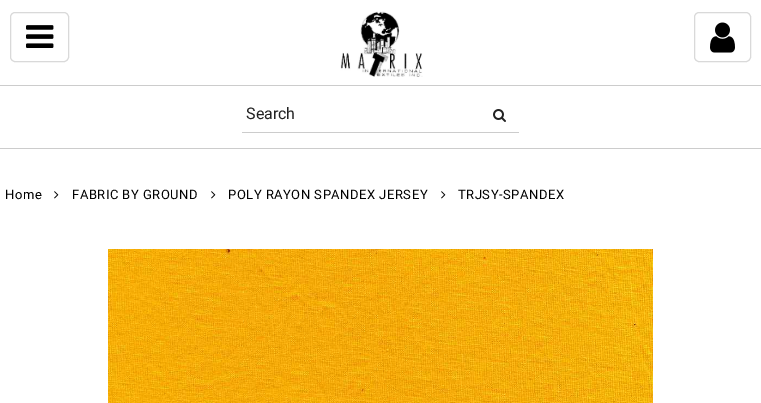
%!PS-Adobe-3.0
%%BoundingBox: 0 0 761 403
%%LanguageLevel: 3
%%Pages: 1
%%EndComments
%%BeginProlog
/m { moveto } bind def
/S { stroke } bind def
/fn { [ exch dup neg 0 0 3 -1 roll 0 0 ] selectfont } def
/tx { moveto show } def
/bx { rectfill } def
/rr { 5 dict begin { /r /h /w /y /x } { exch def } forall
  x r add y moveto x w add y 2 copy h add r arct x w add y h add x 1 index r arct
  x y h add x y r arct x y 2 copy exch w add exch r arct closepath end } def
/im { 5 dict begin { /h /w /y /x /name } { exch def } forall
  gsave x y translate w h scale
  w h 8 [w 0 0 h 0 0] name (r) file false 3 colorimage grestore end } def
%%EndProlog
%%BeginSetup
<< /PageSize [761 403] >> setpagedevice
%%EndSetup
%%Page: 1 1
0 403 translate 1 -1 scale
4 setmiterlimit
1 setgray
0 0 761 403 bx
0.851 setgray
10.5 12.5 58 49 4.5 rr S
(image0.raw) 26 25 28 23 im
(image1.raw) 340 11 83 66 im
694.5 12.5 56 49 4.5 rr S
(image2.raw) 710 22 25 31 im
0.8 setgray
0 85 761 1 bx
0 148 761 1 bx
242 132 277 1 bx
/Roboto-Regular 16 fn
0.133 setgray
(Search) 246 119 tx
(image3.raw) 493 109 13 13 im
/Roboto-Regular 13 fn
0 setgray
5 199 m 0.5 0 (Home) ashow
(image4.raw) 54 191 5 8 im
72 199 m 0.5 0 (FABRIC BY GROUND) ashow
(image4.raw) 211 191 5 8 im
228 199 m 0.5 0 (POLY RAYON SPANDEX JERSEY) ashow
(image4.raw) 441 191 5 8 im
458 199 m 0.5 0 (TRJSY-SPANDEX) ashow
(image5.raw) 108 249 545 154 im
showpage
%%EOF
